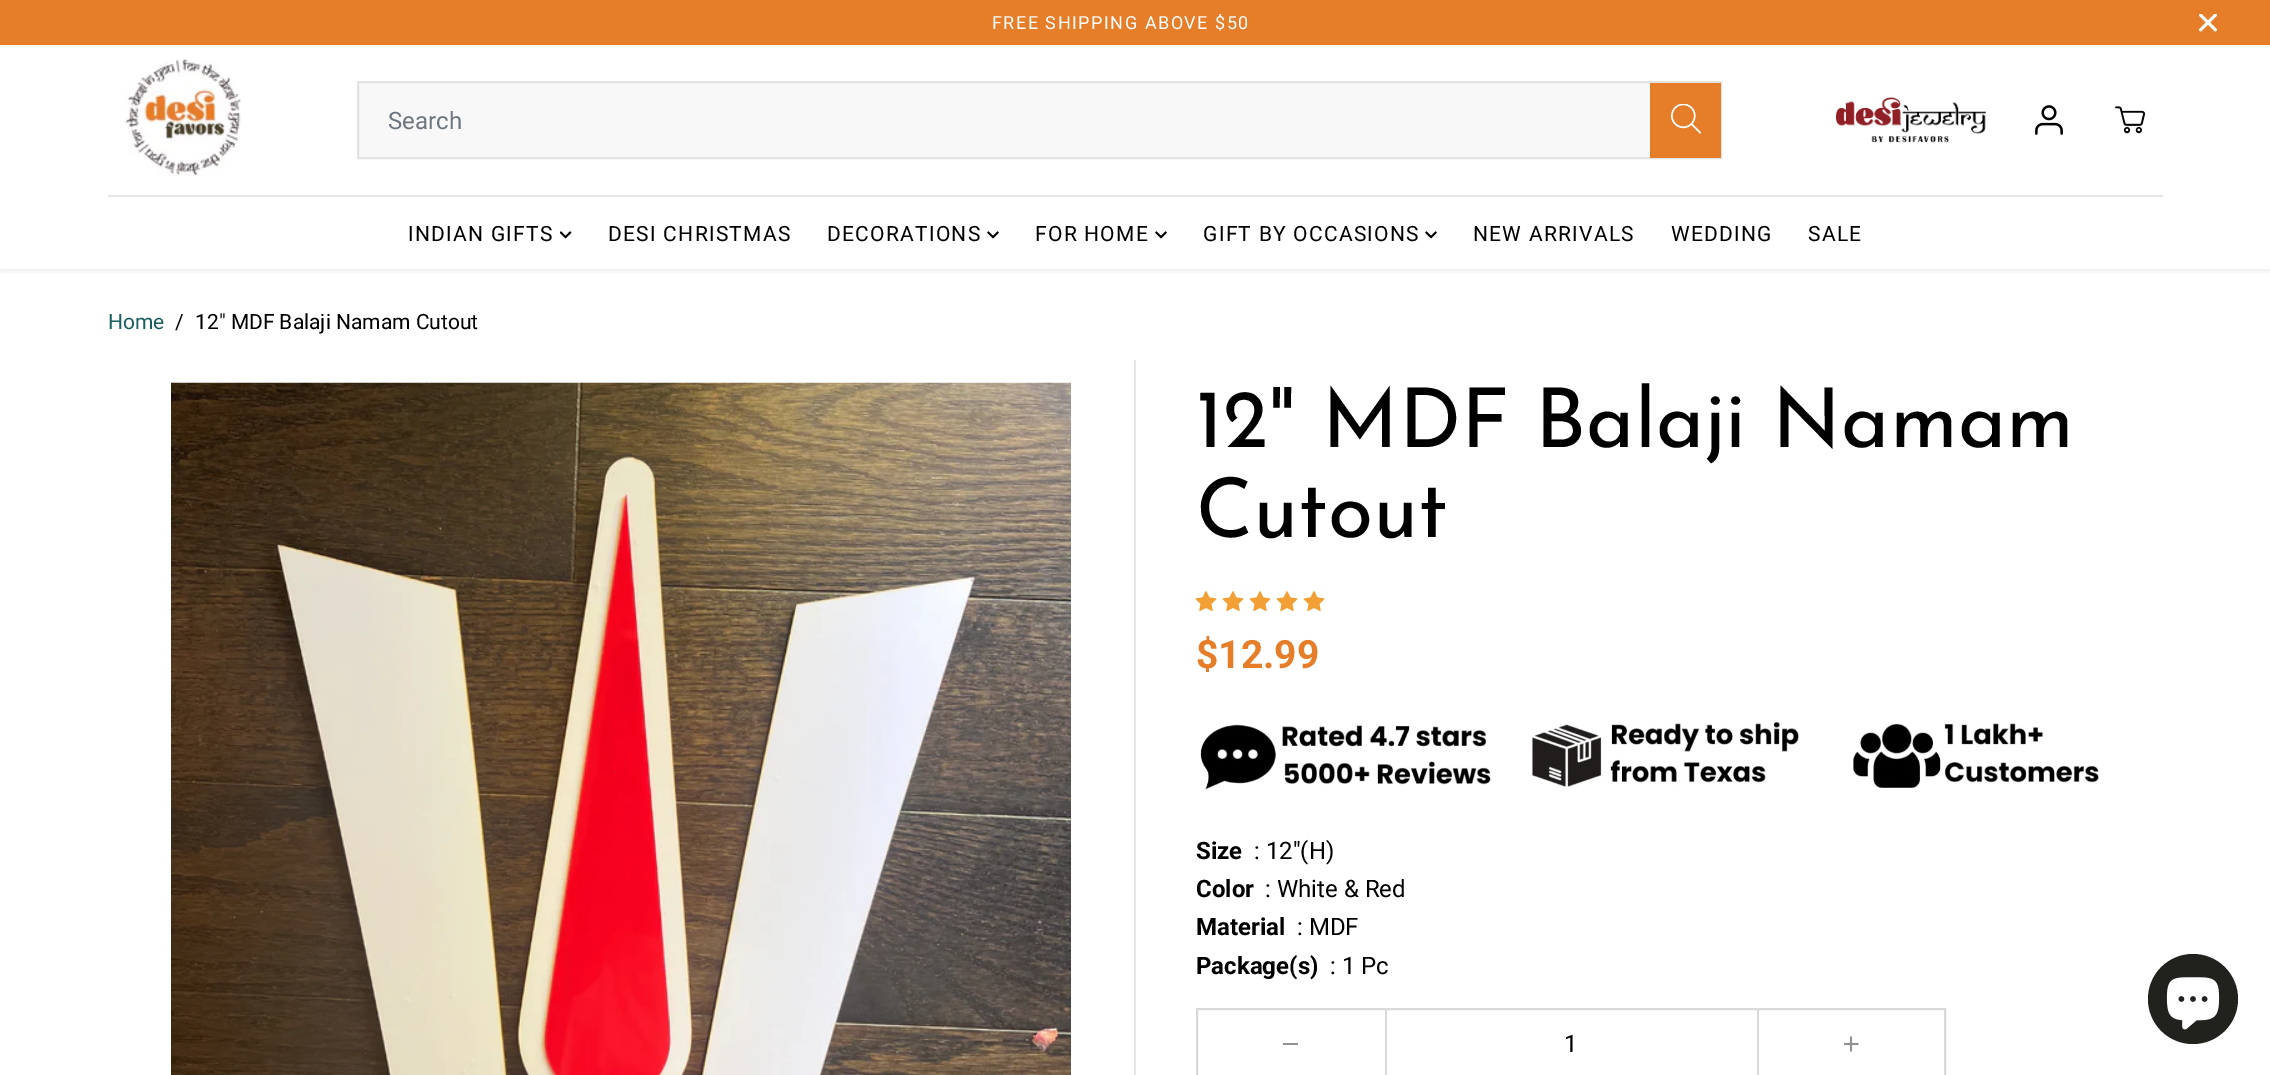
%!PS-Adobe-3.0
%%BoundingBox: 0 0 2270 1075
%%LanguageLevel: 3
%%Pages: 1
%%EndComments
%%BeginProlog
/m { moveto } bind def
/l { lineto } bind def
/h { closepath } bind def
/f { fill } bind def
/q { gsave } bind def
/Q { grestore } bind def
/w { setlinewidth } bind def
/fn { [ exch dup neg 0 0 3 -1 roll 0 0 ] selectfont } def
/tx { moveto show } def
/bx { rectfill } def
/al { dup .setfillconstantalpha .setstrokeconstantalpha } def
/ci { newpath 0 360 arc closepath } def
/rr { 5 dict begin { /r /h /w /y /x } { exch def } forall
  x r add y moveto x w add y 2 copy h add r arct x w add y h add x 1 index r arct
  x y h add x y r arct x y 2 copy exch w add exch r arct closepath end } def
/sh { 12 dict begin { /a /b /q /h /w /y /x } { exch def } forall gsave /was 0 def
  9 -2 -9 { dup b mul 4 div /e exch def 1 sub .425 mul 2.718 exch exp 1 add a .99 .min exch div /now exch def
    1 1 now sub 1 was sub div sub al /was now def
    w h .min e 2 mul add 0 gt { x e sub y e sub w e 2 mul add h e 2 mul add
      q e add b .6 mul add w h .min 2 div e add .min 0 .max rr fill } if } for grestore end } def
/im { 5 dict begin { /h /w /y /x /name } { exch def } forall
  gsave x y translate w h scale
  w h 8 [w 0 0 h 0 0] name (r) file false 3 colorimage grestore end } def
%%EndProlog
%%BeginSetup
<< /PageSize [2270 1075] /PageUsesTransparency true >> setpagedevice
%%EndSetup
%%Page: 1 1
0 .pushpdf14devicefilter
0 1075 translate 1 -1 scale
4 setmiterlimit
1 setgray
0 0 2270 1075 bx
0.902 0.49 0.161 setrgbcolor
0 0 2270 45 bx
/Roboto-Regular 18 fn
1 setgray
992 29 m 1.5 0 (FREE SHIPPING ABOVE $50) ashow
(image0.raw) 2199 14 18 18 im
q
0 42 m 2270 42 l 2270 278 l 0 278 l h 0 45 m 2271 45 l 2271 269 l 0 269 l h eoclip newpath
0 setgray
0 48 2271 224 0 1.5 0.05 sh
Q
(image1.raw) 125 59 116 117 im
0.973 setgray
359 83 1291 74 bx
0.886 setgray
2 w
358 82 1363 76 rectstroke
/Roboto-Regular 24 fn
0.424 0.459 0.49 setrgbcolor
(Search) 388 129 tx
0.902 0.49 0.161 setrgbcolor
1650 83 71 75 bx
(image2.raw) 1671 104 30 30 im
(image3.raw) 1836 97 150 46 im
(image4.raw) 2035 105 28 30 im
(image5.raw) 2115 106 30 28 im
0.902 setgray
108 195 2055 2 bx
/Roboto-Regular 21 fn
0 setgray
408 241 m 1.25 0 (INDIAN GIFTS) ashow
(image6.raw) 560 231 12 8 im
608 241 m 1.25 0 (DESI CHRISTMAS) ashow
827 241 m 1.25 0 (DECORATIONS) ashow
(image7.raw) 987 231 12 8 im
1035 241 m 1.25 0 (FOR HOME) ashow
(image7.raw) 1155 231 12 8 im
1203 241 m 1.25 0 (GIFT BY OCCASIONS) ashow
(image7.raw) 1425 231 12 8 im
1473 241 m 1.25 0 (NEW ARRIVALS) ashow
1671 241 m 1.25 0 (WEDDING) ashow
1808 241 m 1.25 0 (SALE) ashow
0.09 0.369 0.365 setrgbcolor
(Home) 108 329 tx
0 setgray
(/) 175 329 tx
(12" MDF Balaji Namam Cutout) 195 329 tx
0.902 setgray
1134 360 2 715 bx
(image8.raw) 171 382 900 693 im
/JosefinSans-Regular 82.5 fn
0 setgray
(12" MDF Balaji Namam) 1196 447 tx
(Cutout) 1196 537 tx
(image9.raw) 1195 591 22 21 im
(image9.raw) 1222 591 22 21 im
(image9.raw) 1249 591 22 21 im
(image9.raw) 1276 591 22 21 im
(image9.raw) 1303 591 22 21 im
/Roboto-Bold 39 fn
0.902 0.49 0.161 setrgbcolor
($12.99) 1196 668 tx
(image10.raw) 1200 721 899 69 im
/Roboto-Bold 24 fn
0 setgray
(Size) 1196 859 tx
/Roboto-Regular 24 fn
(: 12"\(H\)) 1254 859 tx
/Roboto-Bold 24 fn
(Color) 1196 897 tx
/Roboto-Regular 24 fn
(: White & Red) 1265 897 tx
/Roboto-Bold 24 fn
(Material) 1196 935 tx
/Roboto-Regular 24 fn
(: MDF) 1297 935 tx
/Roboto-Bold 24 fn
(Package\(s\)) 1196 974 tx
/Roboto-Regular 24 fn
(: 1 Pc) 1330 974 tx
0.847 0.851 0.847 setrgbcolor
1197 1009 748 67 rectstroke
0.569 setgray
1283 1043 15 2 bx
0.847 0.851 0.847 setrgbcolor
1757 1010 2 65 bx
1385 1010 2 65 bx
0 setgray
(1) 1564 1052 tx
(image11.raw) 1844 1036 15 16 im
0.129 0.129 0.118 setrgbcolor
2193 999 45 ci f
(image12.raw) 2166 977 54 53 im
.poppdf14devicefilter showpage
%%EOF
